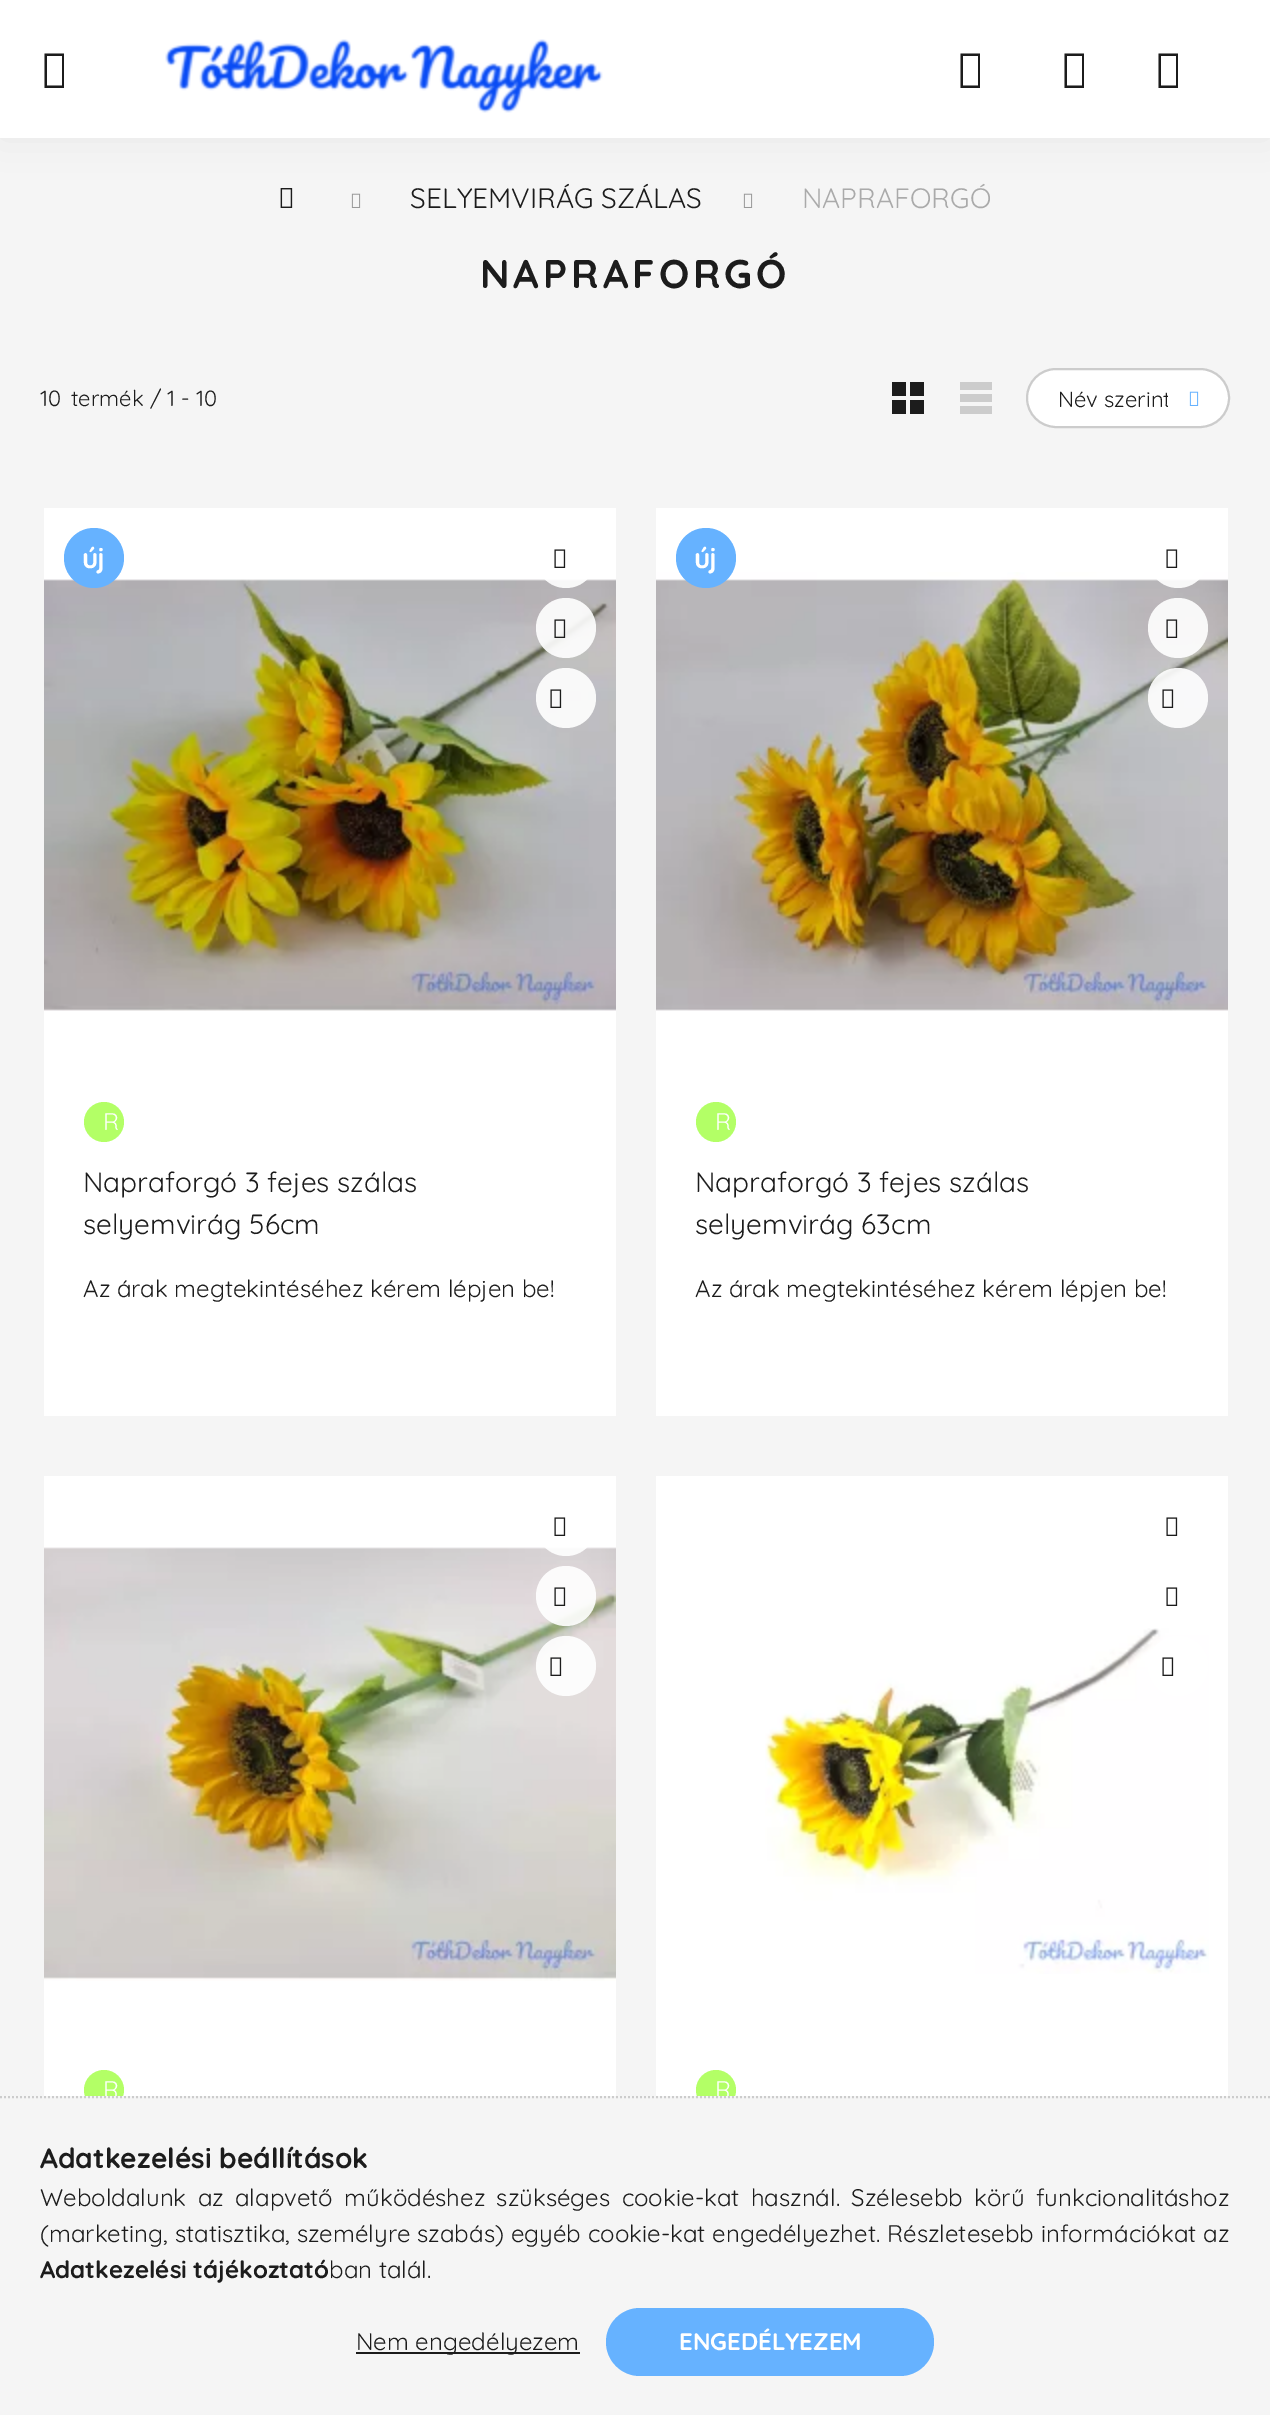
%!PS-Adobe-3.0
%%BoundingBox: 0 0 1270 2415
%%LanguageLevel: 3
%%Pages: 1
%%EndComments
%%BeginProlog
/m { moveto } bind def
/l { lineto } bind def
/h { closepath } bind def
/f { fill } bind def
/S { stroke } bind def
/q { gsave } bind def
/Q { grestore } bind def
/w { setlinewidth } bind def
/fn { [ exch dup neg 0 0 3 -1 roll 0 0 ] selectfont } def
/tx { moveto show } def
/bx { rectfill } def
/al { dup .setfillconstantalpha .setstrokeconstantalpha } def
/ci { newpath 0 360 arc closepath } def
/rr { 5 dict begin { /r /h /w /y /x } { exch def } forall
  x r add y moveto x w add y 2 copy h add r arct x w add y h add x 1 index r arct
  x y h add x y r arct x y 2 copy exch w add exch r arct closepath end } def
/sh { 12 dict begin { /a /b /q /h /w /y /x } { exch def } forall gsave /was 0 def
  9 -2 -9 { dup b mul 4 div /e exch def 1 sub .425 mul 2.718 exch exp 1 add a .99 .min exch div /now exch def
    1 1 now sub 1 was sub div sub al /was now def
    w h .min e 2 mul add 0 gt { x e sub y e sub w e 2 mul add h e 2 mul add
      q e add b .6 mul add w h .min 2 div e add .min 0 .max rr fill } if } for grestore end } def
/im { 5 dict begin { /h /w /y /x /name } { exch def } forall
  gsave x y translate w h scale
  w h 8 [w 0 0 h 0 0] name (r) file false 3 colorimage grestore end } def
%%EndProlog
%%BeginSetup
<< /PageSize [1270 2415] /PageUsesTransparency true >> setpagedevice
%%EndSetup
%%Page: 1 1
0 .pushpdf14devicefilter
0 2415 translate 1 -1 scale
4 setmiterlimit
0.961 setgray
0 0 1270 2415 bx
(image1.raw) 280 188 13 20 im
(image2.raw) 351 193 10 15 im
(image2.raw) 743 193 10 15 im
0 setgray
0 0 1270 138 0 20 0.05 sh
1 setgray
0 0 1270 138 bx
0.11 setgray
44.5 88 m 44.5 53.5 l 64 53.5 l 64 88 l h 47 85.5 m 62 85.5 l 62 56 l 47 56 l h f
(image0.raw) 165 39 438 74 im
960.5 88 m 960.5 53.5 l 980 53.5 l 980 88 l h 963 85.5 m 978 85.5 l 978 56 l 963 56 l h f
1064.5 88 m 1064.5 53.5 l 1084 53.5 l 1084 88 l h 1067 85.5 m 1082 85.5 l 1082 56 l 1067 56 l h f
1158.5 88 m 1158.5 53.5 l 1178 53.5 l 1178 88 l h 1161 85.5 m 1176 85.5 l 1176 56 l 1161 56 l h f
/Quicksand-Regular 28 fn
(SELYEMVIRÁG SZÁLAS) 410 208 tx
0.667 setgray
(NAPRAFORGÓ) 802 208 tx
/Quicksand-Bold 40 fn
0.11 setgray
480 288 m 4 0 (NAPRAFORGÓ) ashow
/Quicksand-Regular 22 fn
(10) 40 406 tx
(termék / 1 - 10) 71 406 tx
892 382 14 14 bx
910 382 14 14 bx
892 400 14 14 bx
910 400 14 14 bx
0.8 setgray
960 382 32 8 bx
960 394 32 8 bx
960 406 32 8 bx
1 setgray
1027 369 202 58 29 rr q f Q
0.8 setgray
2 w
S
q
1058 384 110 32 rectclip
0.11 setgray
(Név szerint) 1058 407 tx
Q
(image3.raw) 1189 391 10 15 im
1 setgray
44 508 572 908 bx
(image7.raw) 44 579 572 432 im
0.4 0.698 1 setrgbcolor
94 558 30 ci f
/Quicksand-Bold 28 fn
1 setgray
82 568 m -1 0 (új) ashow
0.9 al
566 558 30 ci f
1 al
(image4.raw) 554 549 12 19 im
0.9 al
566 628 30 ci f
1 al
(image5.raw) 554 619 12 19 im
0.9 al
566 698 30 ci f
1 al
(image6.raw) 550 689 12 19 im
0.702 1 0.4 setrgbcolor
104 1122 20 ci f
/Quicksand-Regular 24 fn
1 setgray
(R) 103 1130 tx
/Quicksand-Regular 28 fn
0.11 setgray
(Napraforgó 3 fejes szálas) 83 1192 tx
(selyemvirág 56cm) 83 1234 tx
/Quicksand-Regular 24 fn
(Az árak megtekintéséhez kérem lépjen be!) 83 1297 tx
1 setgray
656 508 572 908 bx
(image10.raw) 656 572 572 439 im
0.4 0.698 1 setrgbcolor
706 558 30 ci f
/Quicksand-Bold 28 fn
1 setgray
694 568 m -1 0 (új) ashow
0.9 al
1178 558 30 ci f
1 al
(image4.raw) 1166 549 12 19 im
0.9 al
1178 628 30 ci f
1 al
(image8.raw) 1166 619 12 19 im
0.9 al
1178 698 30 ci f
1 al
(image9.raw) 1162 689 12 19 im
0.702 1 0.4 setrgbcolor
716 1122 20 ci f
/Quicksand-Regular 24 fn
1 setgray
(R) 715 1130 tx
/Quicksand-Regular 28 fn
0.11 setgray
(Napraforgó 3 fejes szálas) 695 1192 tx
(selyemvirág 63cm) 695 1234 tx
/Quicksand-Regular 24 fn
(Az árak megtekintéséhez kérem lépjen be!) 695 1297 tx
1 setgray
44 1476 572 620 bx
(image13.raw) 44 1547 572 434 im
0.9 al
566 1526 30 ci f
1 al
(image4.raw) 554 1517 12 19 im
0.9 al
566 1596 30 ci f
1 al
(image11.raw) 554 1587 12 19 im
0.9 al
566 1666 30 ci f
1 al
(image12.raw) 550 1657 12 19 im
0.702 1 0.4 setrgbcolor
104 2090 20 ci f
1 setgray
(R) 103 2098 tx
656 1476 572 620 bx
(image4.raw) 1166 1517 12 19 im
(image4.raw) 1166 1587 12 19 im
(image14.raw) 765 1628 444 346 im
0.9 al
1178 1666 30 ci f
1 al
(image4.raw) 1162 1657 12 19 im
0.702 1 0.4 setrgbcolor
716 2090 20 ci f
1 setgray
(R) 715 2098 tx
0.961 setgray
85 2096 650 14 bx
0.8 setgray
[2 2] 0 setdash
0 2097 m 1270 2097 l S
/Quicksand-Bold 28 fn
0.11 setgray
(Adatkezelési beállítások) 40 2168 tx
/Quicksand-Regular 24 fn
40 2206 m 4.75 0 32 (Weboldalunk az alapvető működéshez szükséges cookie-kat használ. Szélesebb körű funkcionalitáshoz) widthshow
40 2242 m 0.25 0 32 (\(marketing, statisztika, személyre szabás\) egyéb cookie-kat engedélyezhet. Részletesebb információkat az) widthshow
/Quicksand-Bold 24 fn
(Adatkezelési tájékoztató) 40 2278 tx
/Quicksand-Regular 24 fn
(ban talál.) 329 2278 tx
356 2352 224 2 bx
(Nem engedélyezem) 356 2350 tx
0.4 0.698 1 setrgbcolor
606 2308 328 68 34 rr f
/Quicksand-Bold 24 fn
1 setgray
(ENGEDÉLYEZEM) 679 2350 tx
.poppdf14devicefilter showpage
%%EOF
